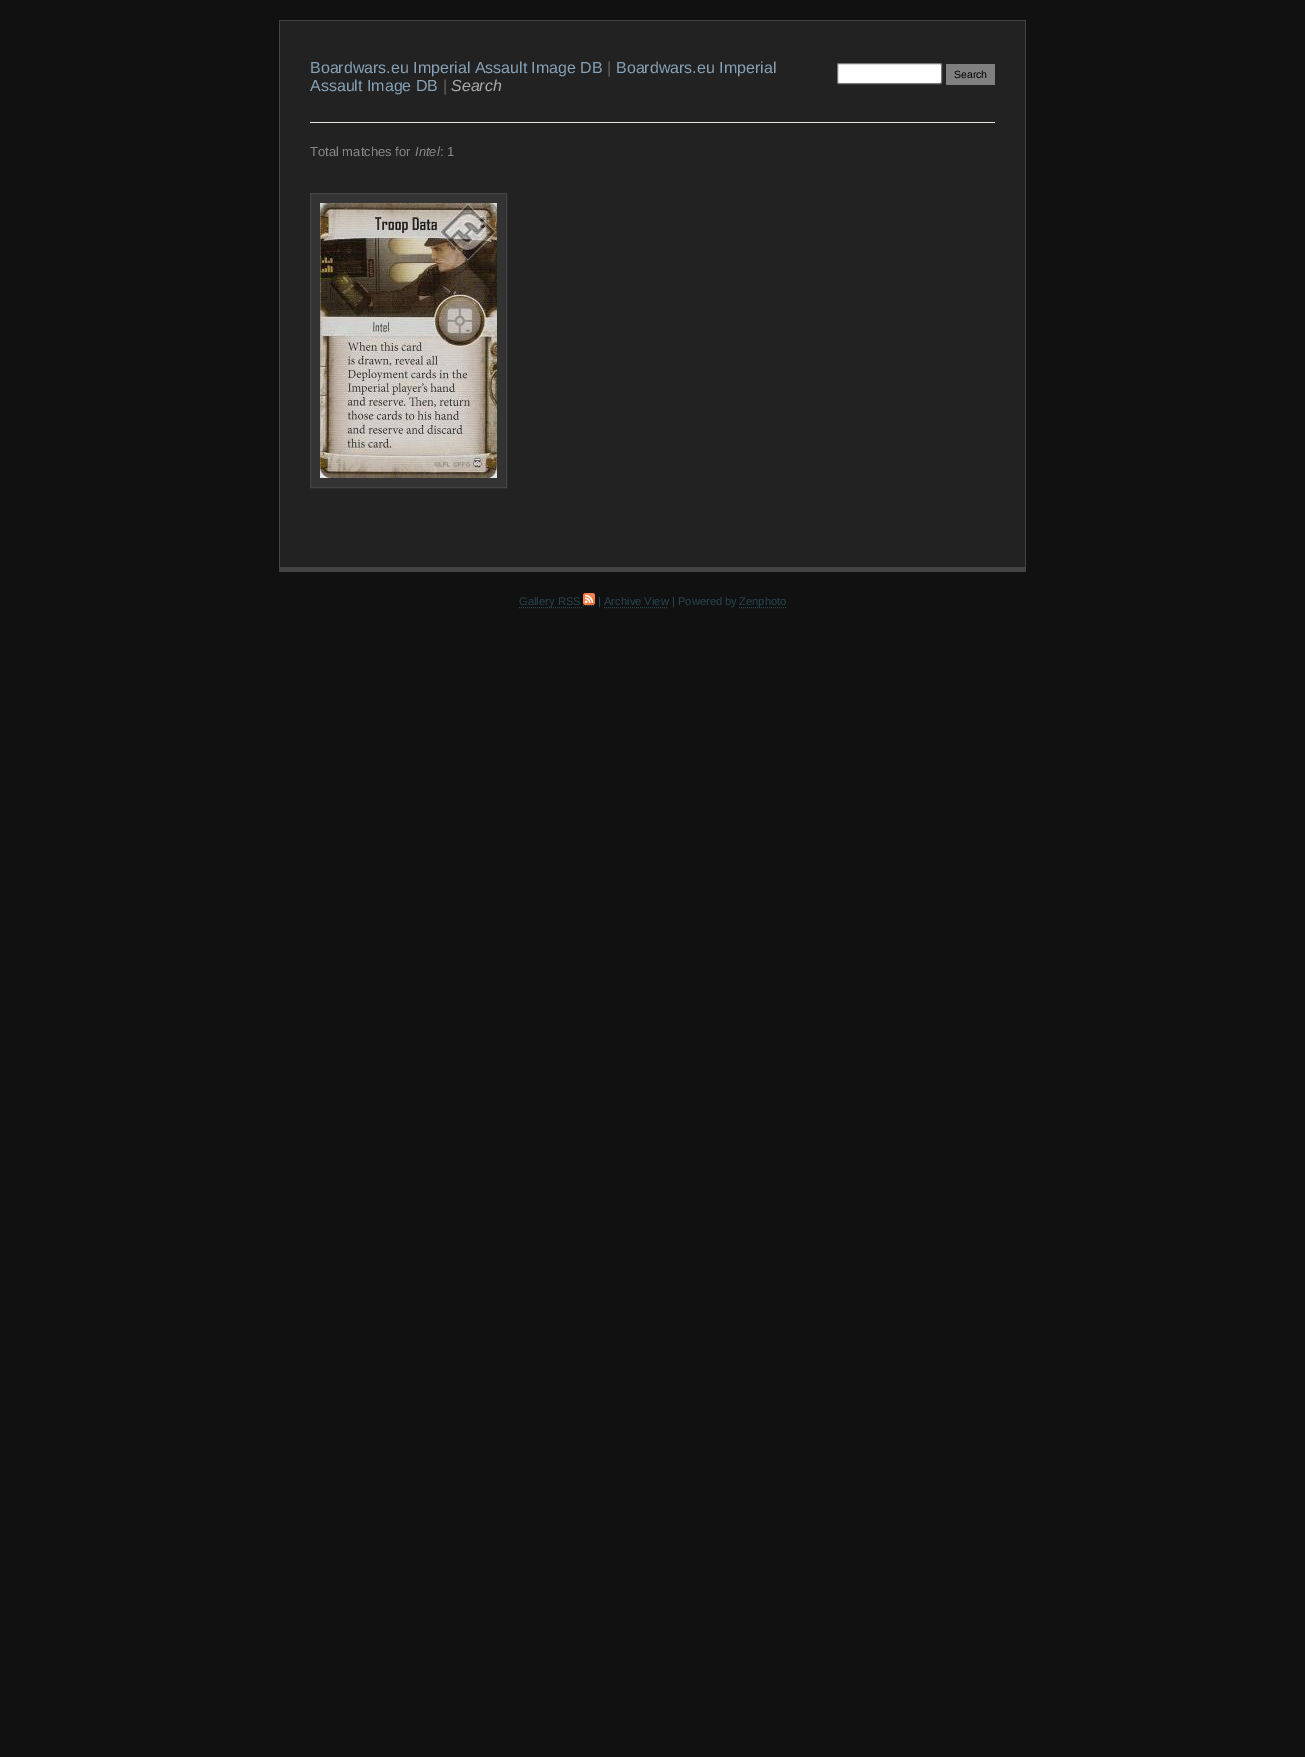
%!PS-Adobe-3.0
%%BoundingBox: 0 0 1305 1757
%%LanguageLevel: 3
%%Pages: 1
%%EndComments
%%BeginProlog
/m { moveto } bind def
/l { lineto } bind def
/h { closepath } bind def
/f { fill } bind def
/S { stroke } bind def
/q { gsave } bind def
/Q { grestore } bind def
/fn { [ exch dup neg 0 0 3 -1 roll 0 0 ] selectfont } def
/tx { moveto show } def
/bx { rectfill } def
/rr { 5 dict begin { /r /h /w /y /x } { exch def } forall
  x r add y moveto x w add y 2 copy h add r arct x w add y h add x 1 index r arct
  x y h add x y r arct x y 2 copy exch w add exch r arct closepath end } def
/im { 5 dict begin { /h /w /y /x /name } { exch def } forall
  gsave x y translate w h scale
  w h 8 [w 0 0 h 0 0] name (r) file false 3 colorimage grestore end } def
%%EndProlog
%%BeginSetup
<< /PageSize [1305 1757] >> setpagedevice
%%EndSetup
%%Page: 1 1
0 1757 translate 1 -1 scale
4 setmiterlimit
0.067 setgray
0 0 1305 1757 bx
0.133 setgray
280 21 745 546 bx
0.267 setgray
279 20 747 1 bx
1025 20 1 552 bx
279 567 747 5 bx
279 20 1 552 bx
0.902 0.902 0.875 setrgbcolor
310 122 685 1 bx
/LiberationSans-Regular 16 fn
0.525 0.631 0.714 setrgbcolor
(Boardwars.eu Imperial Assault Image DB) 310 73 tx
0.4 setgray
(|) 607 73 tx
0.525 0.631 0.714 setrgbcolor
(Boardwars.eu Imperial) 616 73 tx
(Assault Image DB) 310 91 tx
0.4 setgray
(|) 443 91 tx
/LiberationSans-Italic 16 fn
0.667 setgray
(Search) 451 91 tx
1 setgray
837.5 63.5 104 20 1.5 rr q f Q
0.463 setgray
S
0.502 setgray
946 64 49 21 bx
/LiberationSans-Regular 10.5 fn
0 setgray
(Search) 954 78 tx
/LiberationSans-Regular 13 fn
0.533 setgray
(Total matches for) 310 156 tx
/LiberationSans-Italic 13 fn
(Intel) 415 156 tx
/LiberationSans-Regular 13 fn
(: 1) 440 156 tx
0.2 setgray
310.5 193.5 m 506.5 193.5 l 506.5 487.5 l 310.5 487.5 l h q f Q
0.267 setgray
S
(image0.raw) 320 203 177 275 im
0.161 0.271 0.314 setrgbcolor
[1 1] 0 setdash
519 607.5 m 583 607.5 l S
/LiberationSans-Regular 11.2 fn
(Gallery RSS) 519 605 tx
583 605.5 m 595 605.5 l S
(image1.raw) 583 593 12 12 im
(| Archive View | Powered by) 598 605 tx
739 607.5 m 786 607.5 l S
(Zenphoto) 739 605 tx
604 607.5 m 668 607.5 l S
showpage
%%EOF
